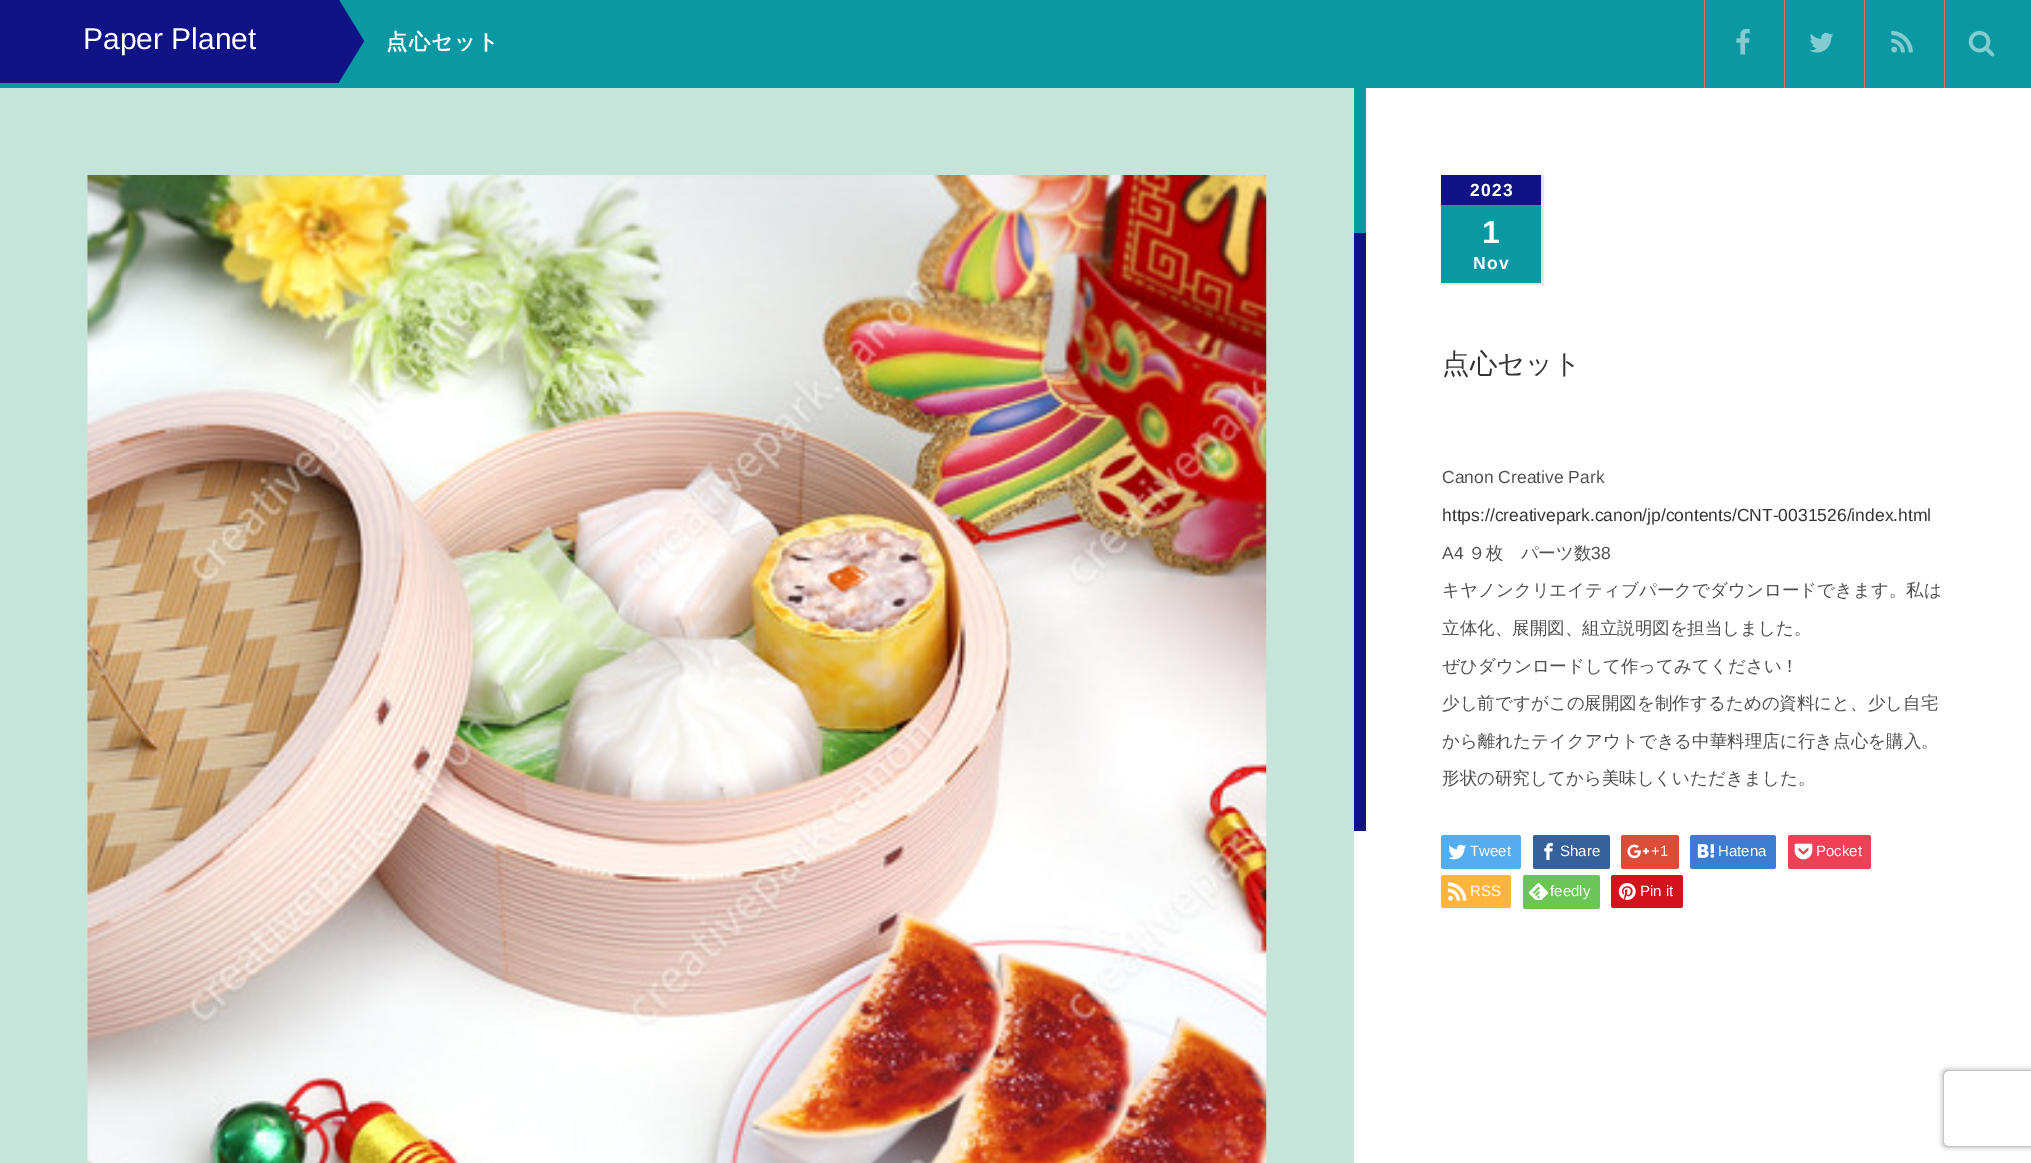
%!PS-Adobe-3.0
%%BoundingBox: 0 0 2031 1163
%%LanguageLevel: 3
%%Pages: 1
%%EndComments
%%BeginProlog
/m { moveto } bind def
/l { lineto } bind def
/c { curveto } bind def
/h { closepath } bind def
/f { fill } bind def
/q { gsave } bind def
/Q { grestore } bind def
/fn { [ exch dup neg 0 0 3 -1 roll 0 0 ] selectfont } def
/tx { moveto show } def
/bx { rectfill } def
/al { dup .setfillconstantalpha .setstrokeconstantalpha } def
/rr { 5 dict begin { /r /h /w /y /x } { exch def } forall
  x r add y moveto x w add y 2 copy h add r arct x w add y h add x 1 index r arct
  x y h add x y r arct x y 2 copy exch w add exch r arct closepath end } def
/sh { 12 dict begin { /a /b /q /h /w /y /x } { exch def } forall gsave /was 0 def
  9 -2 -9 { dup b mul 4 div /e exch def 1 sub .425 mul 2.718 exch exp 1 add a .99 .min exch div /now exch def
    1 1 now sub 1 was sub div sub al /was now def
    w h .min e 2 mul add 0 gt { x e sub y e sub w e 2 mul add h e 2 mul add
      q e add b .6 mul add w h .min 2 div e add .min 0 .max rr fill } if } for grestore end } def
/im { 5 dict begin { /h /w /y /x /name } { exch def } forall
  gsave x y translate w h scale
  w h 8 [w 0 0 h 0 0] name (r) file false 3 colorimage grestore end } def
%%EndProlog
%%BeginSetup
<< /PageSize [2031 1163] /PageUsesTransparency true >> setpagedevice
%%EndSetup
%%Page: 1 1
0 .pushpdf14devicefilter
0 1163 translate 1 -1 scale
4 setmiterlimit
0.773 0.898 0.859 setrgbcolor
0 0 2031 1163 bx
0.039 0.6 0.639 setrgbcolor
0 0 2031 88 bx
1 setgray
1354 88 677 1075 bx
0.039 0.6 0.639 setrgbcolor
1354 88 12 145 bx
q
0 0 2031 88 rectclip
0 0 m 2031 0 l 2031 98 l 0 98 l h 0 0 m 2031 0 l 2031 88 l 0 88 l h eoclip newpath
0 setgray
0 0 2031 88 0 3 1 sh
Q
0.059 0.075 0.522 setrgbcolor
0 0 339 83 bx
/LiberationSans-Regular 30 fn
1 setgray
(Paper Planet) 83 49 tx
0.059 0.075 0.522 setrgbcolor
339 82 m 339 0 l 364 41 l h f
/WenQuanYiZenHei-Bold 21.25 fn
1 setgray
386 49 m 1.25 0 (点心セット) ashow
0.898 0.416 0.427 setrgbcolor
1704 0 1 88 bx
(image0.raw) 1736 28 14 27 im
1784 0 1 88 bx
(image1.raw) 1809 32 25 21 im
1864 0 1 88 bx
(image2.raw) 1891 30 22 23 im
1944 0 1 88 bx
(image3.raw) 1968 30 27 27 im
(image4.raw) 87 175 1180 988 im
0.059 0.075 0.522 setrgbcolor
1354 233 12 598 bx
0 setgray
1441 175 103 110 0 0.5 0.1 sh
0.039 0.6 0.639 setrgbcolor
1441 205 100 78 bx
0.059 0.075 0.522 setrgbcolor
1441 175 100 30 bx
/LiberationSans-Bold 17.5 fn
1 setgray
1470 196 m 1.25 0 (2023) ashow
/LiberationSans-Bold 32 fn
1482 243 m 1.25 0 (1) ashow
/LiberationSans-Bold 17.5 fn
1473 269 m 1.25 0 (Nov) ashow
/WenQuanYiZenHei-Medium 27.5 fn
0.2 setgray
(点心セット) 1442 373 tx
/LiberationSans-Regular 17.5 fn
0.314 setgray
(Canon Creative Park) 1442 483 tx
0.2 setgray
(https://creativepark.canon/jp/contents/CNT-0031526/index.html) 1442 521 tx
0.314 setgray
(A4) 1442 559 tx
/WenQuanYiZenHei-Medium 17.5 fn
(９枚　パーツ数) 1468 559 tx
/LiberationSans-Regular 17.5 fn
(38) 1591 559 tx
/WenQuanYiZenHei-Medium 17.5 fn
(キヤノンクリエイティブパークでダウンロードできます。私は) 1442 596 tx
(立体化、展開図、組立説明図を担当しました。) 1442 634 tx
(ぜひダウンロードして作ってみてください！) 1442 672 tx
(少し前ですがこの展開図を制作するための資料にと、少し自宅) 1442 709 tx
(から離れたテイクアウトできる中華料理店に行き点心を購入。) 1442 747 tx
(形状の研究してから美味しくいただきました。) 1442 784 tx
0.969 setgray
1441 837 m 1441 858 l 1441 873 1439 870 1456 870 c 1481 870 l 1486 870 1519 871 1520 869 c 1521 867 l 1519 871 1506 869 1506 869 c 1456 869 l 1443 869 1441 872 1441 861 c h f
0.333 0.675 0.933 setrgbcolor
1441 835 80 34 2.5 rr f
(image5.raw) 1448 844 19 16 im
/LiberationSans-Regular 15 fn
1 setgray
(Tweet) 1470 856 tx
0.969 setgray
1533 868 m 1535 870 l 1596 870 l 1600 870 1610 873 1610 866 c 1610 868 l 1608 869 l 1534 869 l h f
0.208 0.384 0.604 setrgbcolor
1533 835 77 34 2.5 rr f
(image6.raw) 1544 842 9 18 im
1 setgray
(Share) 1560 856 tx
0.969 setgray
1621 837 m 1621 858 l 1621 872 1619 870 1632 870 c 1668 870 l 1681 870 1679 872 1679 858 c 1679 837 l 1679 861 l 1679 871 1678 869 1668 869 c 1632 869 l 1622 869 1621 871 1621 861 c h f
0.867 0.294 0.224 setrgbcolor
1621 835 58 34 2.5 rr f
(image7.raw) 1627 844 22 15 im
1 setgray
(+1) 1651 856 tx
0.969 setgray
1690 866 m 1690 868 l 1690 869 1691 870 1692 870 c 1774 870 l 1775 870 1776 869 1776 868 c 1776 867 l 1776 868 1775 869 1774 869 c 1692 869 l 1691 869 1690 868 1690 866 c h f
0.235 0.49 0.82 setrgbcolor
1690 835 86 34 2.5 rr f
(image8.raw) 1697 844 18 14 im
1 setgray
(Hatena) 1718 856 tx
0.969 setgray
1788 868 m 1788 869 1789 870 1790 870 c 1868 870 l 1870 870 1871 869 1871 868 c 1869 869 l 1861 869 1790 870 1789 868 c h f
0.933 0.251 0.337 setrgbcolor
1788 835 83 34 2.5 rr f
(image9.raw) 1794 843 19 17 im
1 setgray
(Pocket) 1816 856 tx
0.969 setgray
1441 877 m 1441 892 l 1441 911 1437 909 1454 909 c 1498 909 l 1499 909 1511 912 1511 906 c 1509 907 l 1455 908 l 1455 908 1444 909 1442 906 c 1441 905 1441 881 1441 877 c h f
1 0.71 0.235 setrgbcolor
1441 875 70 33 2.5 rr f
(image10.raw) 1448 882 19 19 im
1 setgray
(RSS) 1470 896 tx
0.969 setgray
1523 908 m 1525 910 l 1586 910 l 1590 910 1600 913 1600 906 c 1600 908 l 1598 909 l 1524 909 l h f
0.424 0.776 0.333 setrgbcolor
1523 875 77 34 2.5 rr f
(image11.raw) 1528 883 21 17 im
1 setgray
(feedly) 1550 896 tx
0.969 setgray
1611 877 m 1611 897 l 1611 912 1609 909 1625 909 c 1669 909 l 1687 909 1683 911 1683 892 c 1683 890 1684 879 1682 877 c 1682 896 l 1682 910 1684 908 1669 908 c 1625 908 l 1613 908 1611 911 1611 900 c h f
0.831 0.071 0.11 setrgbcolor
1611 875 72 33 2.5 rr f
(image12.raw) 1618 883 18 17 im
1 setgray
(Pin it) 1640 896 tx
q
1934 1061 m 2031 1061 l 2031 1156 l 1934 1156 l h 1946.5 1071 m 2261.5 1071 l 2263 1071 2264 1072 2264 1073.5 c 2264 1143.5 l 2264 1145 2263 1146 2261.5 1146 c 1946.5 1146 l 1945 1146 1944 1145 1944 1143.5 c 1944 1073.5 l 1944 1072 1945 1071 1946.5 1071 c h eoclip newpath
0.502 setgray
1944 1071 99 75 2.5 3 1 sh
Q
.poppdf14devicefilter showpage
%%EOF
